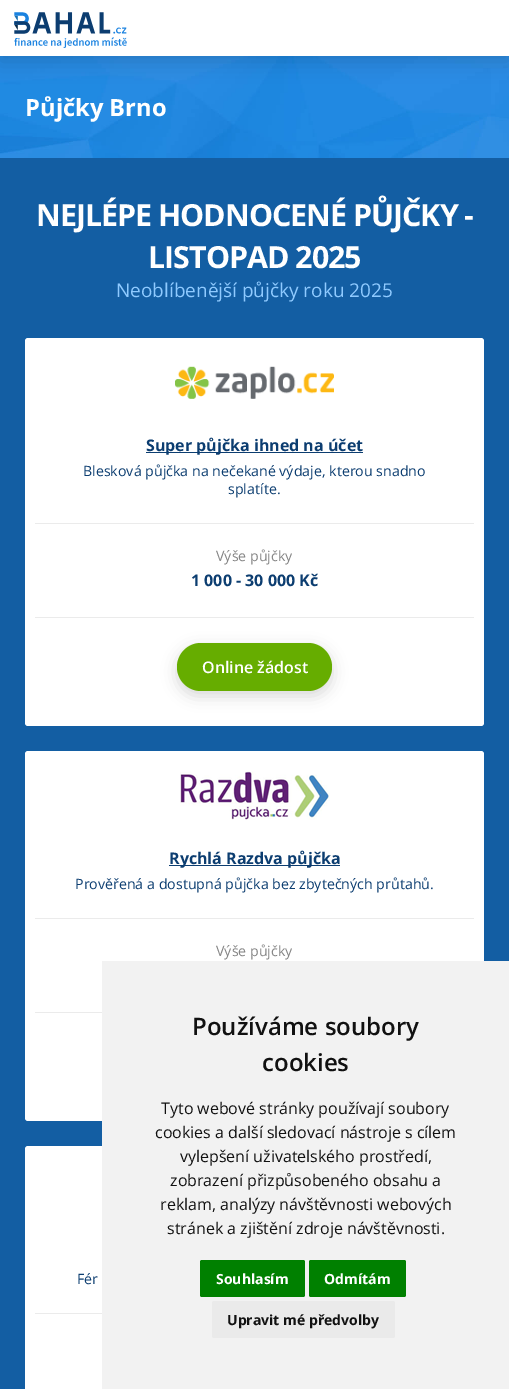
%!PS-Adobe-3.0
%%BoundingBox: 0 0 509 1389
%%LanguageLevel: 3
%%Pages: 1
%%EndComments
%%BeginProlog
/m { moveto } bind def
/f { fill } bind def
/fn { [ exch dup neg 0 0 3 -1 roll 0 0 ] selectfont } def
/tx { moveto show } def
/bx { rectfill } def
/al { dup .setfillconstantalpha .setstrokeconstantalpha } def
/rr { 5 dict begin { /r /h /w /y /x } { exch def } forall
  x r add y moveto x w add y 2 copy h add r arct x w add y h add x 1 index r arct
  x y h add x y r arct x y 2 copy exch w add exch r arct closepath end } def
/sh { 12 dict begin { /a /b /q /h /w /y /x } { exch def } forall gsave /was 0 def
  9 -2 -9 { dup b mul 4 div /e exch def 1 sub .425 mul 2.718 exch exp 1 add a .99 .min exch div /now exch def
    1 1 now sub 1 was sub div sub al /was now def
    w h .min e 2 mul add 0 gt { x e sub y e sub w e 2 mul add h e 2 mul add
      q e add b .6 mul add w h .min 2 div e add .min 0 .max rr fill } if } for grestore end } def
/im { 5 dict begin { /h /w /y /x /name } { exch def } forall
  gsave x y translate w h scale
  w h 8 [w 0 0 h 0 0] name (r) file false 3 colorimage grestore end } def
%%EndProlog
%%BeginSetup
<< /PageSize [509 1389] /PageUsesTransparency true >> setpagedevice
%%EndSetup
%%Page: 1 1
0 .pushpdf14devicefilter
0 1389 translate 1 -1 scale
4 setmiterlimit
1 setgray
0 0 509 1389 bx
(image1.raw) 0 56 509 102 im
0 setgray
0 5 509 56 0 10 0.15 sh
1 setgray
0 0 509 56 bx
(image0.raw) 14 12 113 36 im
/OpenSans-Bold 23.75 fn
(Půjčky Brno) 25 116 tx
0.075 0.369 0.639 setrgbcolor
0 158 509 1231 bx
/OpenSans-Bold 30.4 fn
1 setgray
36 226 m -1 0 (NEJLÉPE HODNOCENÉ PŮJČKY -) ashow
148 268 m -1 0 (LISTOPAD 2025) ashow
/OpenSans-Regular 19 fn
0.561 0.792 1 setrgbcolor
(Neoblíbenější půjčky roku 2025) 116 297 tx
1 setgray
25 338 459 388 3 rr f
(image2.raw) 175 366 159 33 im
0.922 setgray
35 523 439 1 bx
0.047 0.239 0.439 setrgbcolor
146 452 217 1 bx
/OpenSans-Bold 16 fn
(Super půjčka ihned na účet) 146 451 tx
/OpenSans-Regular 14.2 fn
(Blesková půjčka na nečekané výdaje, kterou snadno) 83 476 tx
(splatíte.) 228 494 tx
0.922 setgray
35 617 439 1 bx
0.522 setgray
(Výše půjčky) 216 561 tx
/OpenSans-Bold 16 fn
0.047 0.239 0.439 setrgbcolor
(1 000 - 30 000 Kč) 191 586 tx
0 setgray
177 648 155 48 24 7.5 0.15 sh
0.4 0.678 0 setrgbcolor
177 643 155 48 24 rr f
/OpenSans-SemiBold 16 fn
1 setgray
(Online žádost) 202 673 tx
25 751 459 370 3 rr f
(image3.raw) 180 771 150 49 im
0.922 setgray
35 918 439 1 bx
0.047 0.239 0.439 setrgbcolor
169 865 171 1 bx
/OpenSans-Bold 16 fn
(Rychlá Razdva půjčka) 169 864 tx
/OpenSans-Regular 14.2 fn
(Prověřená a dostupná půjčka bez zbytečných průtahů.) 75 889 tx
0.922 setgray
35 1012 67 1 bx
0.522 setgray
(Výše půjčky) 216 956 tx
1 setgray
25 1146 459 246 3 rr f
0.922 setgray
35 1313 67 1 bx
0.047 0.239 0.439 setrgbcolor
(Fér) 77 1284 tx
0.949 setgray
102 961 407 428 bx
/OpenSans-SemiBold 24 fn
0.067 setgray
(Používáme soubory) 192 1035 tx
(cookies) 262 1071 tx
/OpenSans-Regular 16 fn
(Tyto webové stránky používají soubory) 161 1114 tx
(cookies a další sledovací nástroje s cílem) 155 1138 tx
(vylepšení uživatelského prostředí,) 180 1162 tx
(zobrazení přizpůsobeného obsahu a) 170 1186 tx
(reklam, analýzy návštěvnosti webových) 160 1210 tx
(stránek a zjištění zdroje návštěvnosti.) 167 1234 tx
0 0.502 0 setrgbcolor
200 1260 105 37 2 rr f
/OpenSans-Bold 14 fn
1 setgray
(Souhlasím) 216 1284 tx
0 0.502 0 setrgbcolor
309 1260 97 37 2 rr f
1 setgray
(Odmítám) 324 1284 tx
0.918 setgray
212 1301 183 37 2 rr f
0.067 setgray
(Upravit mé předvolby) 227 1325 tx
.poppdf14devicefilter showpage
%%EOF
